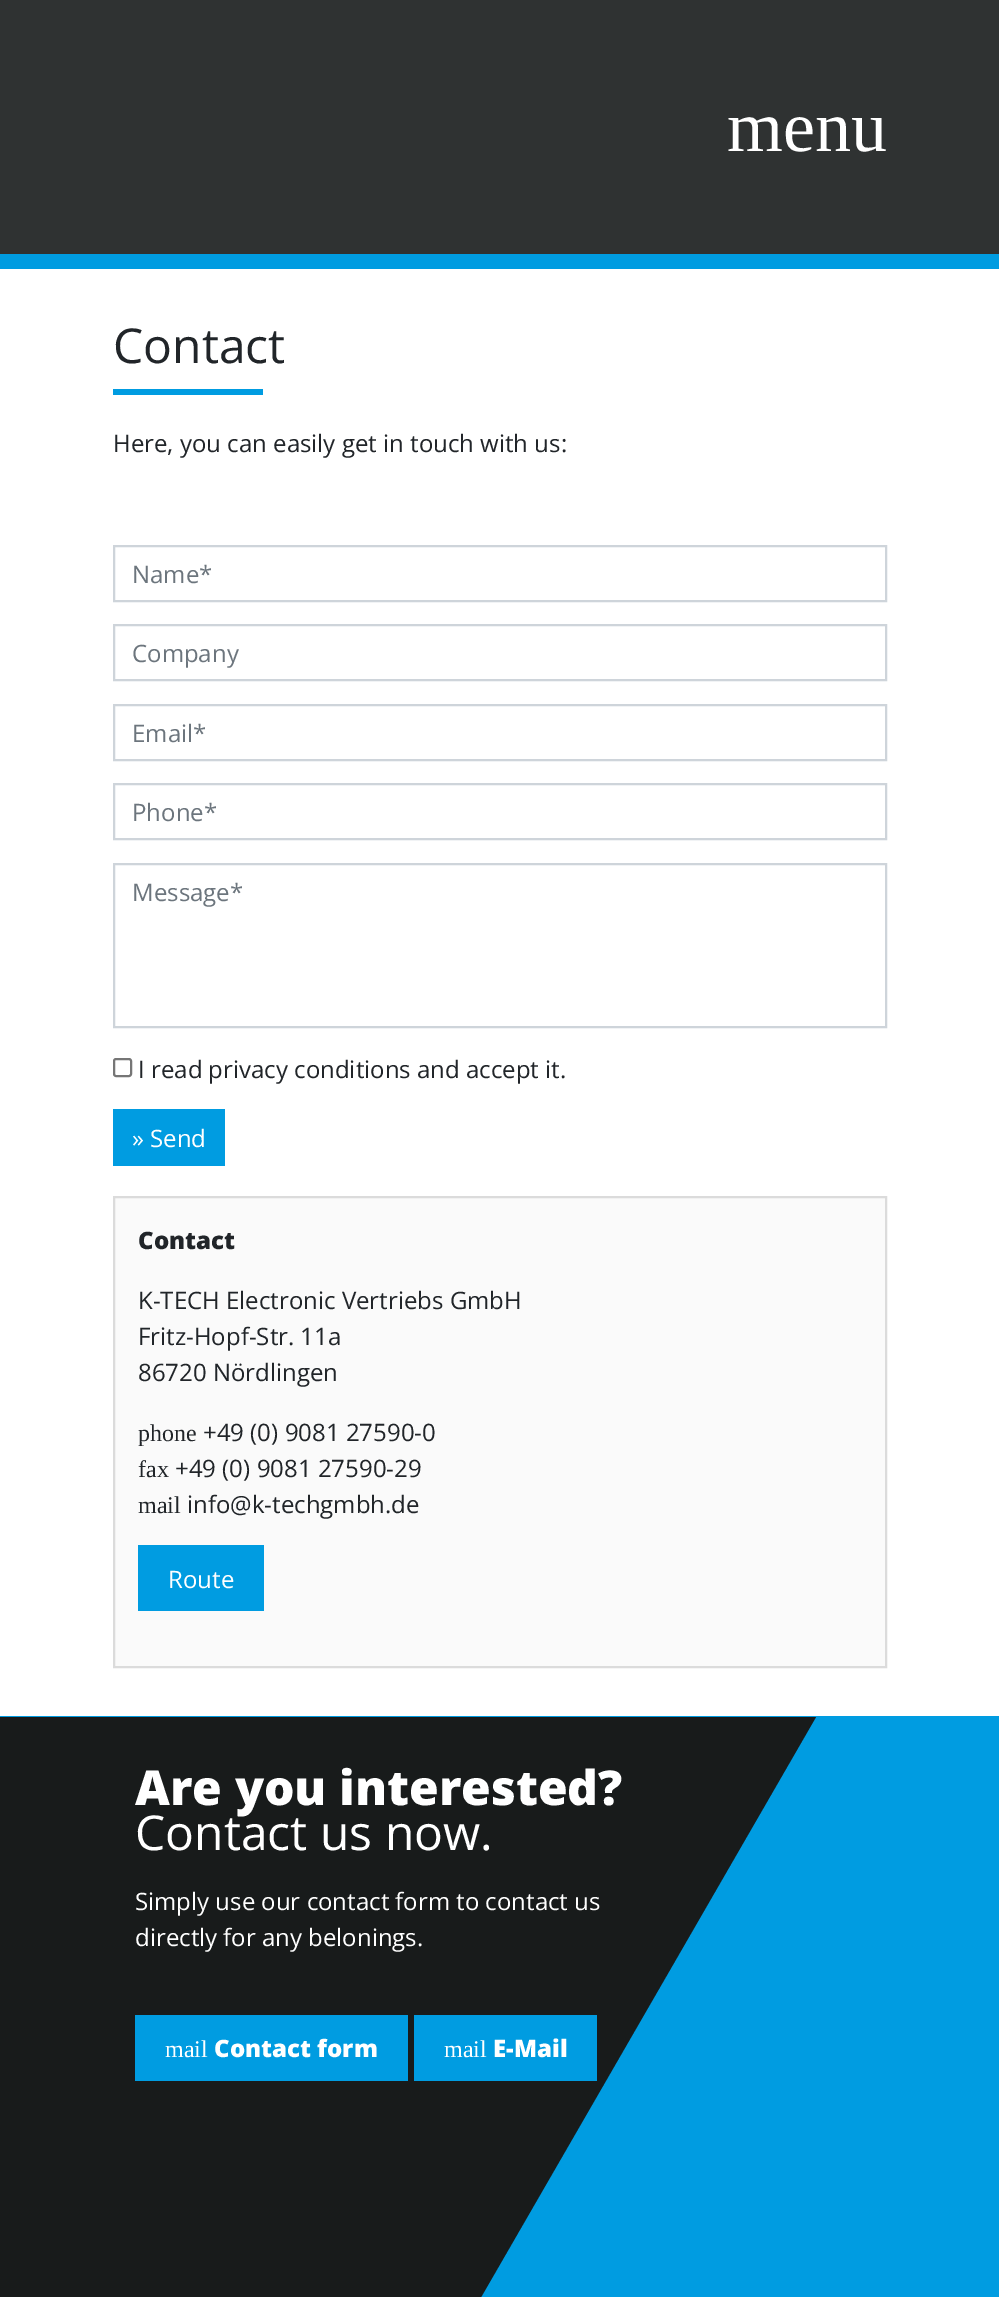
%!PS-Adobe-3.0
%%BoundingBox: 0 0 999 2297
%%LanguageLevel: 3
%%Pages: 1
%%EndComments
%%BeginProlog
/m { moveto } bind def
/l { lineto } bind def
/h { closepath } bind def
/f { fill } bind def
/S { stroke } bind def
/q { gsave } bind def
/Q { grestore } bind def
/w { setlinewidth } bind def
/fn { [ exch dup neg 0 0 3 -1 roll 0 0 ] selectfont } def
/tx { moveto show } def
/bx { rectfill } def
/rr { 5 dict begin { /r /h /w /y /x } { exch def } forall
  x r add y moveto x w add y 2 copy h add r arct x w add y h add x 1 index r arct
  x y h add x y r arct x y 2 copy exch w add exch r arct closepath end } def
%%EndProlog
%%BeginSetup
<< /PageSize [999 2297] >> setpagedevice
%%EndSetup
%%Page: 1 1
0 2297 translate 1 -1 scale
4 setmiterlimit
1 setgray
0 0 999 2297 bx
0.184 0.196 0.196 setrgbcolor
0 0 999 254 bx
/LiberationSerif-Regular 72 fn
1 setgray
(menu) 727 151 tx
0 0.612 0.882 setrgbcolor
0 254 999 15 bx
/OpenSans-Regular 48 fn
0.129 0.145 0.161 setrgbcolor
(Contact) 113 363 tx
0 0.612 0.882 setrgbcolor
113 389 150 6 bx
/OpenSans-Regular 24 fn
0.129 0.145 0.161 setrgbcolor
(Here, you can easily get in touch with us:) 113 452 tx
0.808 0.831 0.855 setrgbcolor
2 w
114 546 772 55 rectstroke
0.424 0.459 0.49 setrgbcolor
(Name*) 132 583 tx
0.808 0.831 0.855 setrgbcolor
114 625 772 55 rectstroke
0.424 0.459 0.49 setrgbcolor
(Company) 132 662 tx
0.808 0.831 0.855 setrgbcolor
114 705 772 55 rectstroke
0.424 0.459 0.49 setrgbcolor
(Email*) 132 742 tx
0.808 0.831 0.855 setrgbcolor
114 784 772 55 rectstroke
0.424 0.459 0.49 setrgbcolor
(Phone*) 132 821 tx
0.808 0.831 0.855 setrgbcolor
114 864 772 163 rectstroke
0.424 0.459 0.49 setrgbcolor
(Message*) 132 901 tx
0.463 setgray
114 1059 17 17 2 rr S
0.129 0.145 0.161 setrgbcolor
(I read privacy conditions and accept it.) 138 1078 tx
0 0.612 0.882 setrgbcolor
113 1109 112 57 bx
1 setgray
(» Send) 132 1147 tx
0.98 setgray
114 1197 m 886 1197 l 886 1667 l 114 1667 l h q f Q
0.859 setgray
S
/OpenSans-ExtraBold 24 fn
0.129 0.145 0.161 setrgbcolor
(Contact) 138 1249 tx
/OpenSans-Regular 24 fn
(K-TECH Electronic Vertriebs GmbH) 138 1309 tx
(Fritz-Hopf-Str. 11a) 138 1345 tx
(86720 Nördlingen) 138 1381 tx
/LiberationSerif-Regular 24 fn
(phone) 138 1441 tx
/OpenSans-Regular 24 fn
(+49 \(0\) 9081 27590-0) 203 1441 tx
/LiberationSerif-Regular 24 fn
(fax) 138 1477 tx
/OpenSans-Regular 24 fn
(+49 \(0\) 9081 27590-29) 175 1477 tx
/LiberationSerif-Regular 24 fn
(mail) 138 1513 tx
/OpenSans-Regular 24 fn
(info@k-techgmbh.de) 187 1513 tx
0 0.612 0.882 setrgbcolor
138 1545 126 66 bx
1 setgray
(Route) 168 1588 tx
0 0.612 0.882 setrgbcolor
0 1716 999 581 bx
0.094 0.106 0.106 setrgbcolor
-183 1717 m 816 1717 l 383 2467 l -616 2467 l h f
/OpenSans-ExtraBold 48 fn
1 setgray
(Are you interested?) 135 1805 tx
/OpenSans-Regular 48 fn
(Contact us now.) 135 1850 tx
/OpenSans-Regular 24 fn
(Simply use our contact form to contact us) 135 1910 tx
(directly for any belonings.) 135 1946 tx
0 0.612 0.882 setrgbcolor
135 2015 273 66 bx
/LiberationSerif-Regular 24 fn
1 setgray
(mail) 165 2057 tx
/OpenSans-ExtraBold 24 fn
(Contact form) 214 2057 tx
0 0.612 0.882 setrgbcolor
414 2015 183 66 bx
/LiberationSerif-Regular 24 fn
1 setgray
(mail) 444 2057 tx
/OpenSans-ExtraBold 24 fn
(E-Mail) 493 2057 tx
showpage
%%EOF
